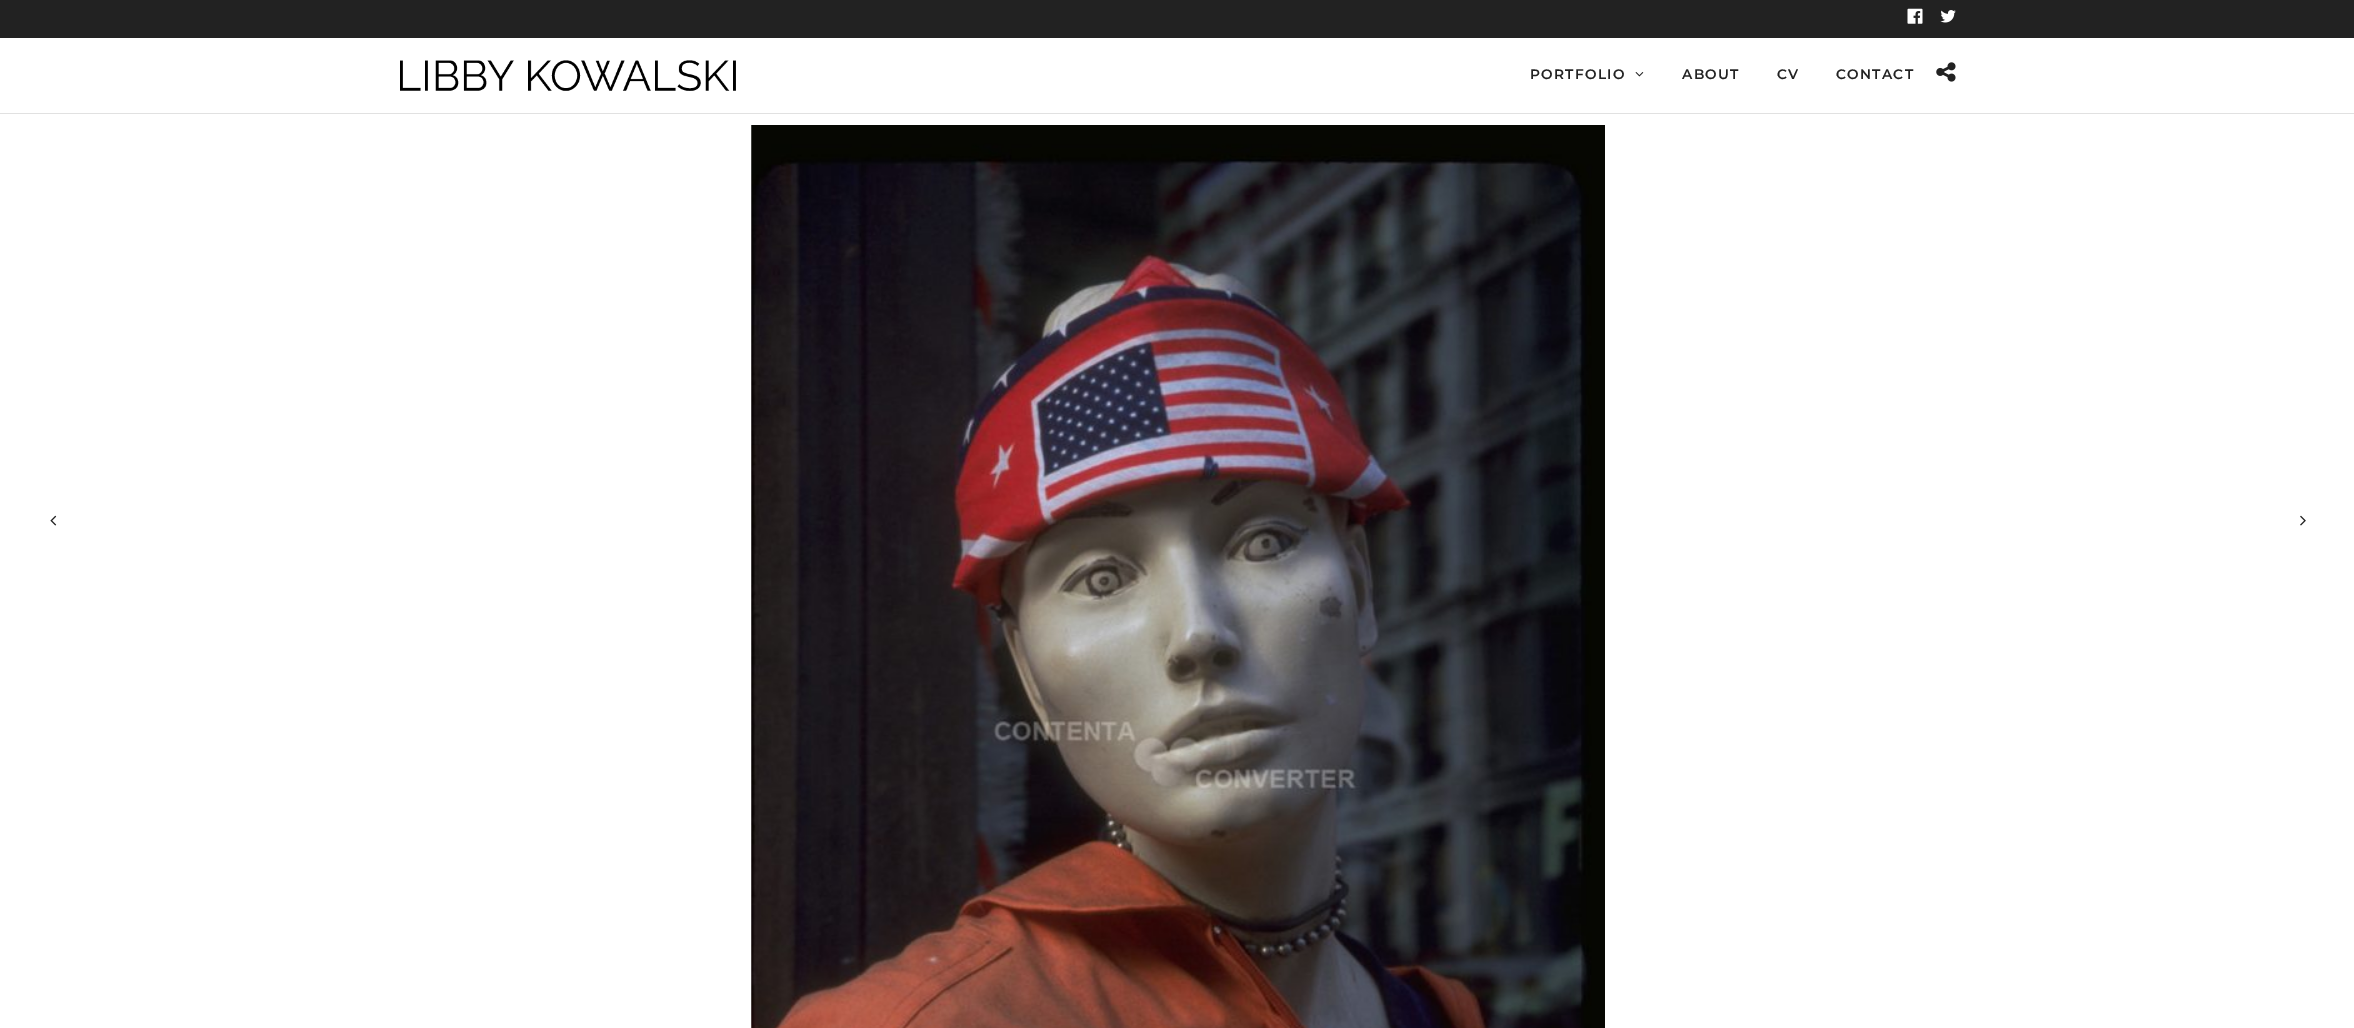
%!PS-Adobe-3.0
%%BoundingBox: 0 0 2354 1028
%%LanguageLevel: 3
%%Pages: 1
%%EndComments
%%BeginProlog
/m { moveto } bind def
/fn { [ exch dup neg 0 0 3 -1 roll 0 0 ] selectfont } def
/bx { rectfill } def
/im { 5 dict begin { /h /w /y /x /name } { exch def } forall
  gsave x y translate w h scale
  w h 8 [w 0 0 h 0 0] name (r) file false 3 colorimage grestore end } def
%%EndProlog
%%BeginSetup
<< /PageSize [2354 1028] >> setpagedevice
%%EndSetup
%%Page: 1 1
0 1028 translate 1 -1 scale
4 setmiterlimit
1 setgray
0 0 2354 1028 bx
0.133 setgray
0 0 2354 38 bx
(image0.raw) 1907 8 16 16 im
(image1.raw) 1940 10 16 13 im
0.882 setgray
0 113 2354 1 bx
(image2.raw) 400 60 336 31 im
/Montserrat-SemiBold 13.75 fn
0.133 setgray
1530 79 m 1.25 0 (PORTFOLIO) ashow
(image3.raw) 1635 72 9 5 im
1682 79 m 1.25 0 (ABOUT) ashow
1777 79 m 1.25 0 (CV) ashow
1836 79 m 1.25 0 (CONTACT) ashow
(image4.raw) 1936 62 20 20 im
(image5.raw) 751 125 854 903 im
(image6.raw) 50 515 7 11 im
(image7.raw) 2300 515 6 11 im
showpage
%%EOF
